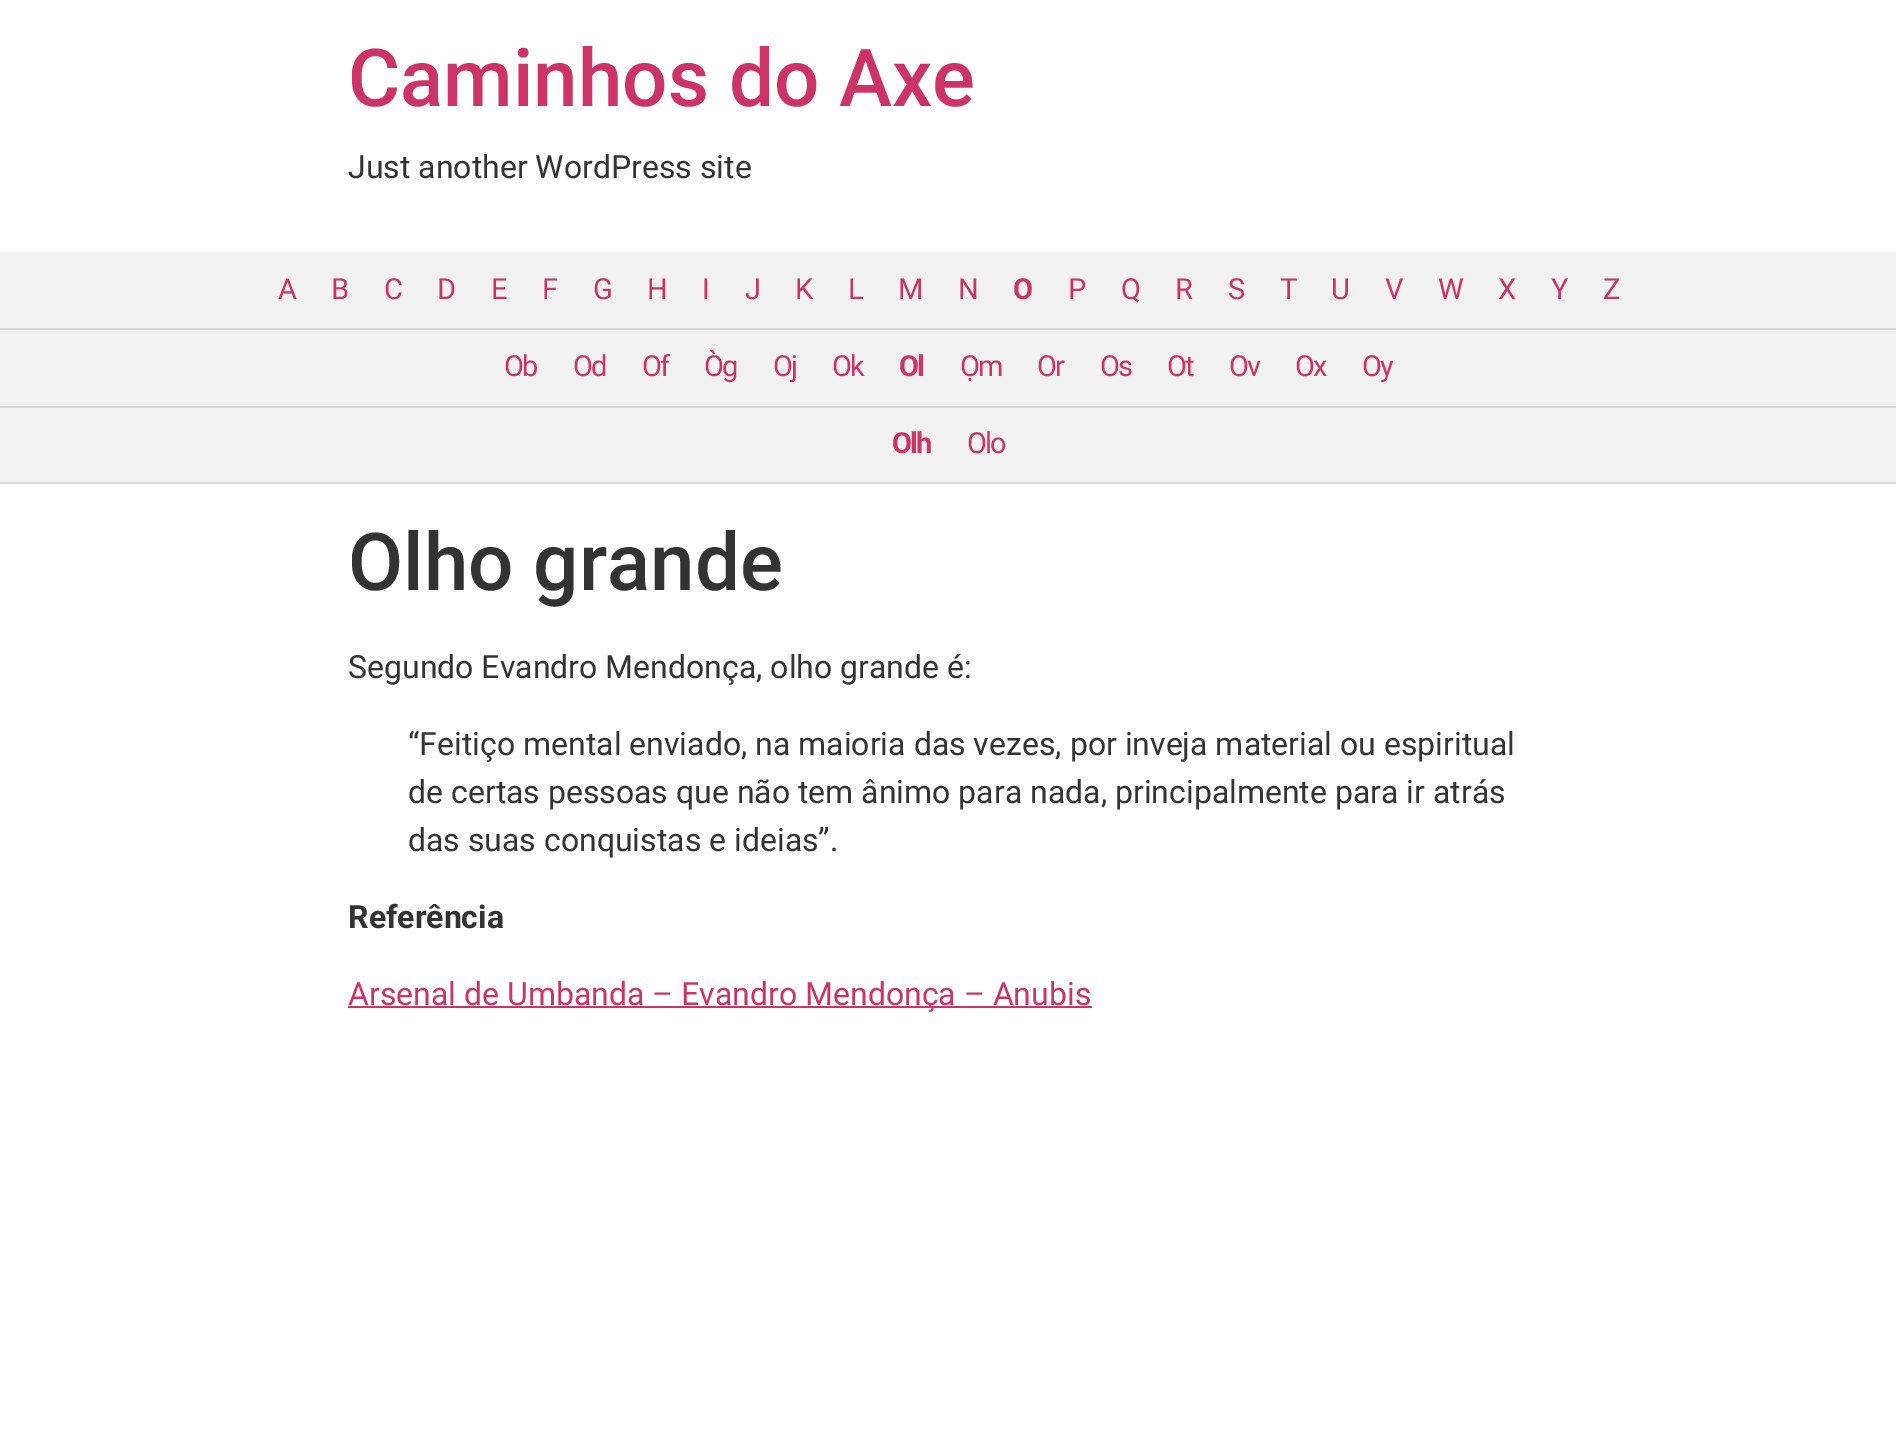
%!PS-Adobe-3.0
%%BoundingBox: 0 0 1896 1431
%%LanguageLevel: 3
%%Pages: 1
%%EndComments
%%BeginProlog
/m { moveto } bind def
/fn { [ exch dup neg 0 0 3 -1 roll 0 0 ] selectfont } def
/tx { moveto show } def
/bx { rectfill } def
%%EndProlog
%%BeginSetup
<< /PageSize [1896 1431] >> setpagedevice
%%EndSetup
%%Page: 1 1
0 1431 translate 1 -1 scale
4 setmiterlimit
1 setgray
0 0 1896 1431 bx
/Roboto-Medium 80 fn
0.8 0.2 0.4 setrgbcolor
(Caminhos do Axe) 348 106 tx
/Roboto-Regular 32 fn
0.2 setgray
(Just another WordPress site) 348 178 tx
0.945 setgray
0 252 1896 76 bx
0.851 setgray
0 328 1896 2 bx
/Roboto-Regular 29 fn
0.8 0.2 0.4 setrgbcolor
278 299 m -2 0 (A) ashow
331 299 m -2 0 (B) ashow
384 299 m -2 0 (C) ashow
437 299 m -2 0 (D) ashow
491 299 m -2 0 (E) ashow
542 299 m -2 0 (F) ashow
593 299 m -2 0 (G) ashow
647 299 m -2 0 (H) ashow
702 299 m -2 0 (I) ashow
745 299 m -2 0 (J) ashow
795 299 m -2 0 (K) ashow
848 299 m -2 0 (L) ashow
898 299 m -2 0 (M) ashow
958 299 m -2 0 (N) ashow
/Roboto-Bold 29 fn
1013 299 m -2 0 (O) ashow
/Roboto-Regular 29 fn
1068 299 m -2 0 (P) ashow
1121 299 m -2 0 (Q) ashow
1175 299 m -2 0 (R) ashow
1228 299 m -2 0 (S) ashow
1280 299 m -2 0 (T) ashow
1331 299 m -2 0 (U) ashow
1385 299 m -2 0 (V) ashow
1438 299 m -2 0 (W) ashow
1498 299 m -2 0 (X) ashow
1551 299 m -2 0 (Y) ashow
1603 299 m -2 0 (Z) ashow
0.945 setgray
0 330 1896 76 bx
0.851 setgray
0 406 1896 2 bx
0.8 0.2 0.4 setrgbcolor
504 376 m -2 0 (Ob) ashow
573 376 m -2 0 (Od) ashow
642 376 m -2 0 (Of) ashow
704 376 m -2 0 (Òg) ashow
773 376 m -2 0 (Oj) ashow
832 376 m -2 0 (Ok) ashow
/Roboto-Bold 29 fn
899 376 m -2 0 (Ol) ashow
/Roboto-Regular 29 fn
960 376 m -2 0 (Ọm) ashow
1037 376 m -2 0 (Or) ashow
1100 376 m -2 0 (Os) ashow
1167 376 m -2 0 (Ot) ashow
1229 376 m -2 0 (Ov) ashow
1295 376 m -2 0 (Ox) ashow
1362 376 m -2 0 (Oy) ashow
0.945 setgray
0 408 1896 74 bx
0.851 setgray
0 482 1896 2 bx
/Roboto-Bold 29 fn
0.8 0.2 0.4 setrgbcolor
892 453 m -2 0 (Olh) ashow
/Roboto-Regular 29 fn
967 453 m -2 0 (Olo) ashow
/Roboto-Medium 80 fn
0.2 setgray
(Olho grande) 348 590 tx
/Roboto-Regular 32 fn
(Segundo Evandro Mendonça, olho grande é:) 348 678 tx
(“Feitiço mental enviado, na maioria das vezes, por inveja material ou espiritual) 408 755 tx
(de certas pessoas que não tem ânimo para nada, principalmente para ir atrás) 408 803 tx
(das suas conquistas e ideias”.) 408 851 tx
/Roboto-Bold 32 fn
(Referência) 348 928 tx
0.8 0.2 0.4 setrgbcolor
348 1006 744 2 bx
/Roboto-Regular 32 fn
(Arsenal de Umbanda – Evandro Mendonça – Anubis) 348 1005 tx
showpage
%%EOF
